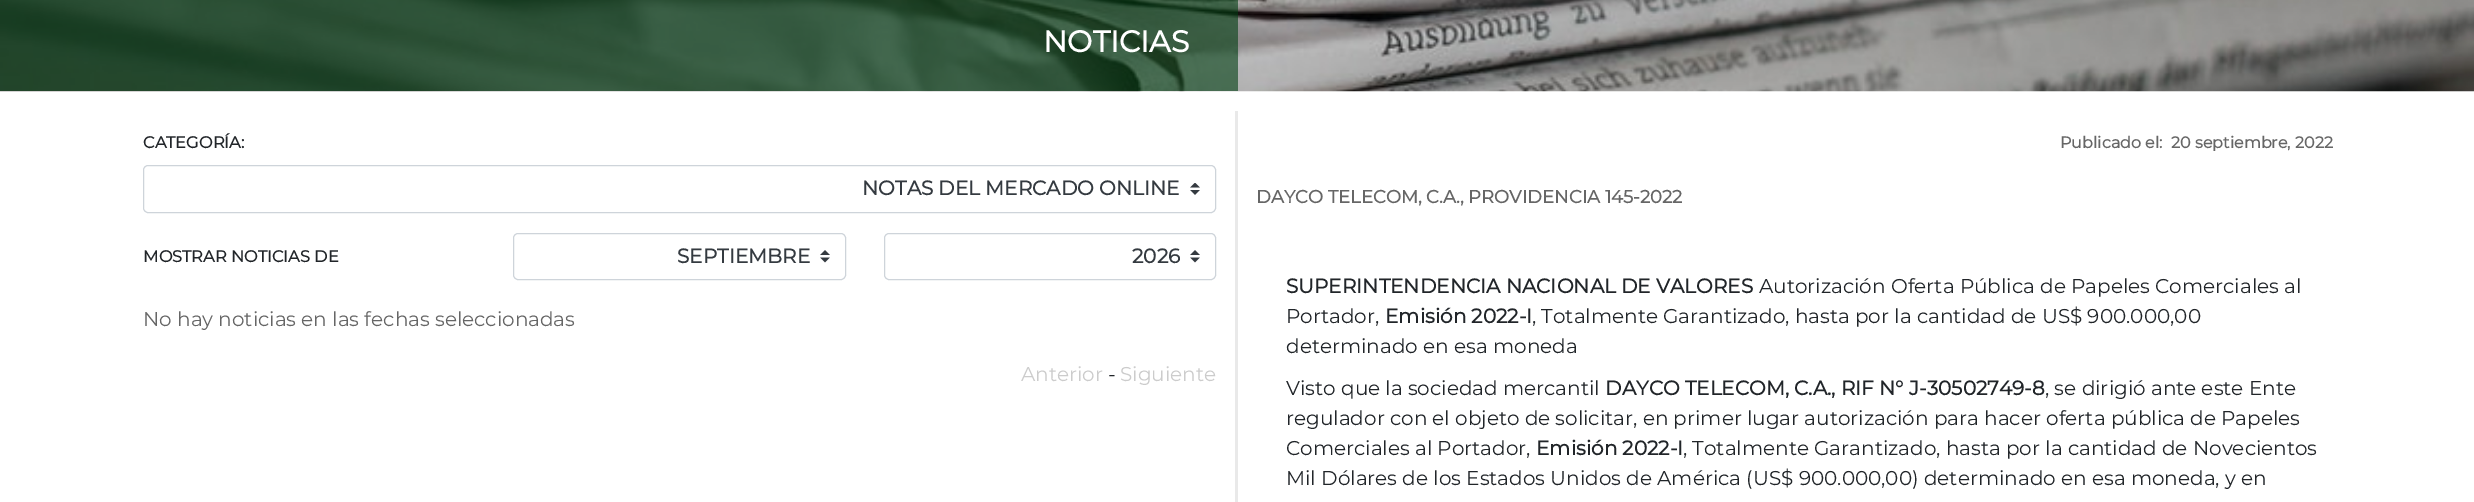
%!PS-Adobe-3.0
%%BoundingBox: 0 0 2474 502
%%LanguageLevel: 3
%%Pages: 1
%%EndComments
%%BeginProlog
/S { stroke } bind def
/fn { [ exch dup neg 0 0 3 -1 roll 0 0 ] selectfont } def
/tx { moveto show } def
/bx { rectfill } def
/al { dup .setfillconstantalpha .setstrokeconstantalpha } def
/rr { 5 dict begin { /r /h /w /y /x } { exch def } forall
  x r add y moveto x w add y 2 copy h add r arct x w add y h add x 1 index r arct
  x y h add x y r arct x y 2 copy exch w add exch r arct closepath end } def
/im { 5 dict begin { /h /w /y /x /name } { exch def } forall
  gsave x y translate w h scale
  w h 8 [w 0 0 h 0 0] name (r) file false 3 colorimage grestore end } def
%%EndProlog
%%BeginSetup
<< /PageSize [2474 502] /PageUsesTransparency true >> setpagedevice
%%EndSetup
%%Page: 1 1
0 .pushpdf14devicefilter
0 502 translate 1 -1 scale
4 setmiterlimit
1 setgray
0 0 2474 502 bx
(image0.raw) 0 0 2474 92 im
0.6 al
0 0.239 0.067 setrgbcolor
0 0 1238 91 bx
/Montserrat-Bold 30 fn
1 al
1 setgray
(NOTICIAS) 1043 52 tx
0.914 setgray
1235 111 3 391 bx
/Montserrat-Bold 16.25 fn
0.129 0.145 0.161 setrgbcolor
(CATEGORÍA:) 143 148 tx
(image1.raw) 1190 183 10 12 im
0.808 0.831 0.855 setrgbcolor
143.5 165.5 1072 47 4.5 rr S
/Montserrat-Bold 20 fn
0.204 0.227 0.251 setrgbcolor
(NOTAS DEL MERCADO ONLINE) 862 195 tx
/Montserrat-Bold 16.25 fn
0.129 0.145 0.161 setrgbcolor
(MOSTRAR NOTICIAS DE) 143 262 tx
(image2.raw) 820 250 10 13 im
0.808 0.831 0.855 setrgbcolor
513.5 233.5 332 46 4.5 rr S
/Montserrat-Bold 20 fn
0.204 0.227 0.251 setrgbcolor
(SEPTIEMBRE) 677 263 tx
(image2.raw) 1190 250 10 13 im
0.808 0.831 0.855 setrgbcolor
884.5 233.5 331 46 4.5 rr S
0.204 0.227 0.251 setrgbcolor
(2026) 1132 263 tx
/Montserrat-Thin 20 fn
0.4 setgray
(No hay noticias en las fechas seleccionadas) 143 326 tx
0.8 setgray
(Anterior) 1021 381 tx
0.129 0.145 0.161 setrgbcolor
(-) 1108 381 tx
0.8 setgray
(Siguiente) 1120 381 tx
/Montserrat-Bold 16 fn
0.4 setgray
(Publicado el:  20 septiembre, 2022) 2060 148 tx
/Montserrat-Bold 18 fn
(DAYCO TELECOM, C.A., PROVIDENCIA 145-2022) 1256 203 tx
/Montserrat-Bold 20 fn
0.129 0.145 0.161 setrgbcolor
(SUPERINTENDENCIA NACIONAL DE VALORES) 1286 293 tx
/Montserrat-Thin 20 fn
(Autorización Oferta Pública de Papeles Comerciales al) 1759 293 tx
(Portador,) 1286 323 tx
/Montserrat-Bold 20 fn
(Emisión 2022-I) 1385 323 tx
/Montserrat-Thin 20 fn
(, Totalmente Garantizado, hasta por la cantidad de US$ 900.000,00) 1532 323 tx
(determinado en esa moneda) 1286 353 tx
(Visto que la sociedad mercantil) 1286 395 tx
/Montserrat-Bold 20 fn
(DAYCO TELECOM, C.A., RIF N° J-30502749-8) 1605 395 tx
/Montserrat-Thin 20 fn
(, se dirigió ante este Ente) 2045 395 tx
(regulador con el objeto de solicitar, en primer lugar autorización para hacer oferta pública de Papeles) 1286 425 tx
(Comerciales al Portador,) 1286 455 tx
/Montserrat-Bold 20 fn
(Emisión 2022-I) 1536 455 tx
/Montserrat-Thin 20 fn
(, Totalmente Garantizado, hasta por la cantidad de Novecientos) 1683 455 tx
(Mil Dólares de los Estados Unidos de América \(US$ 900.000,00\) determinado en esa moneda, y en) 1286 485 tx
.poppdf14devicefilter showpage
%%EOF
